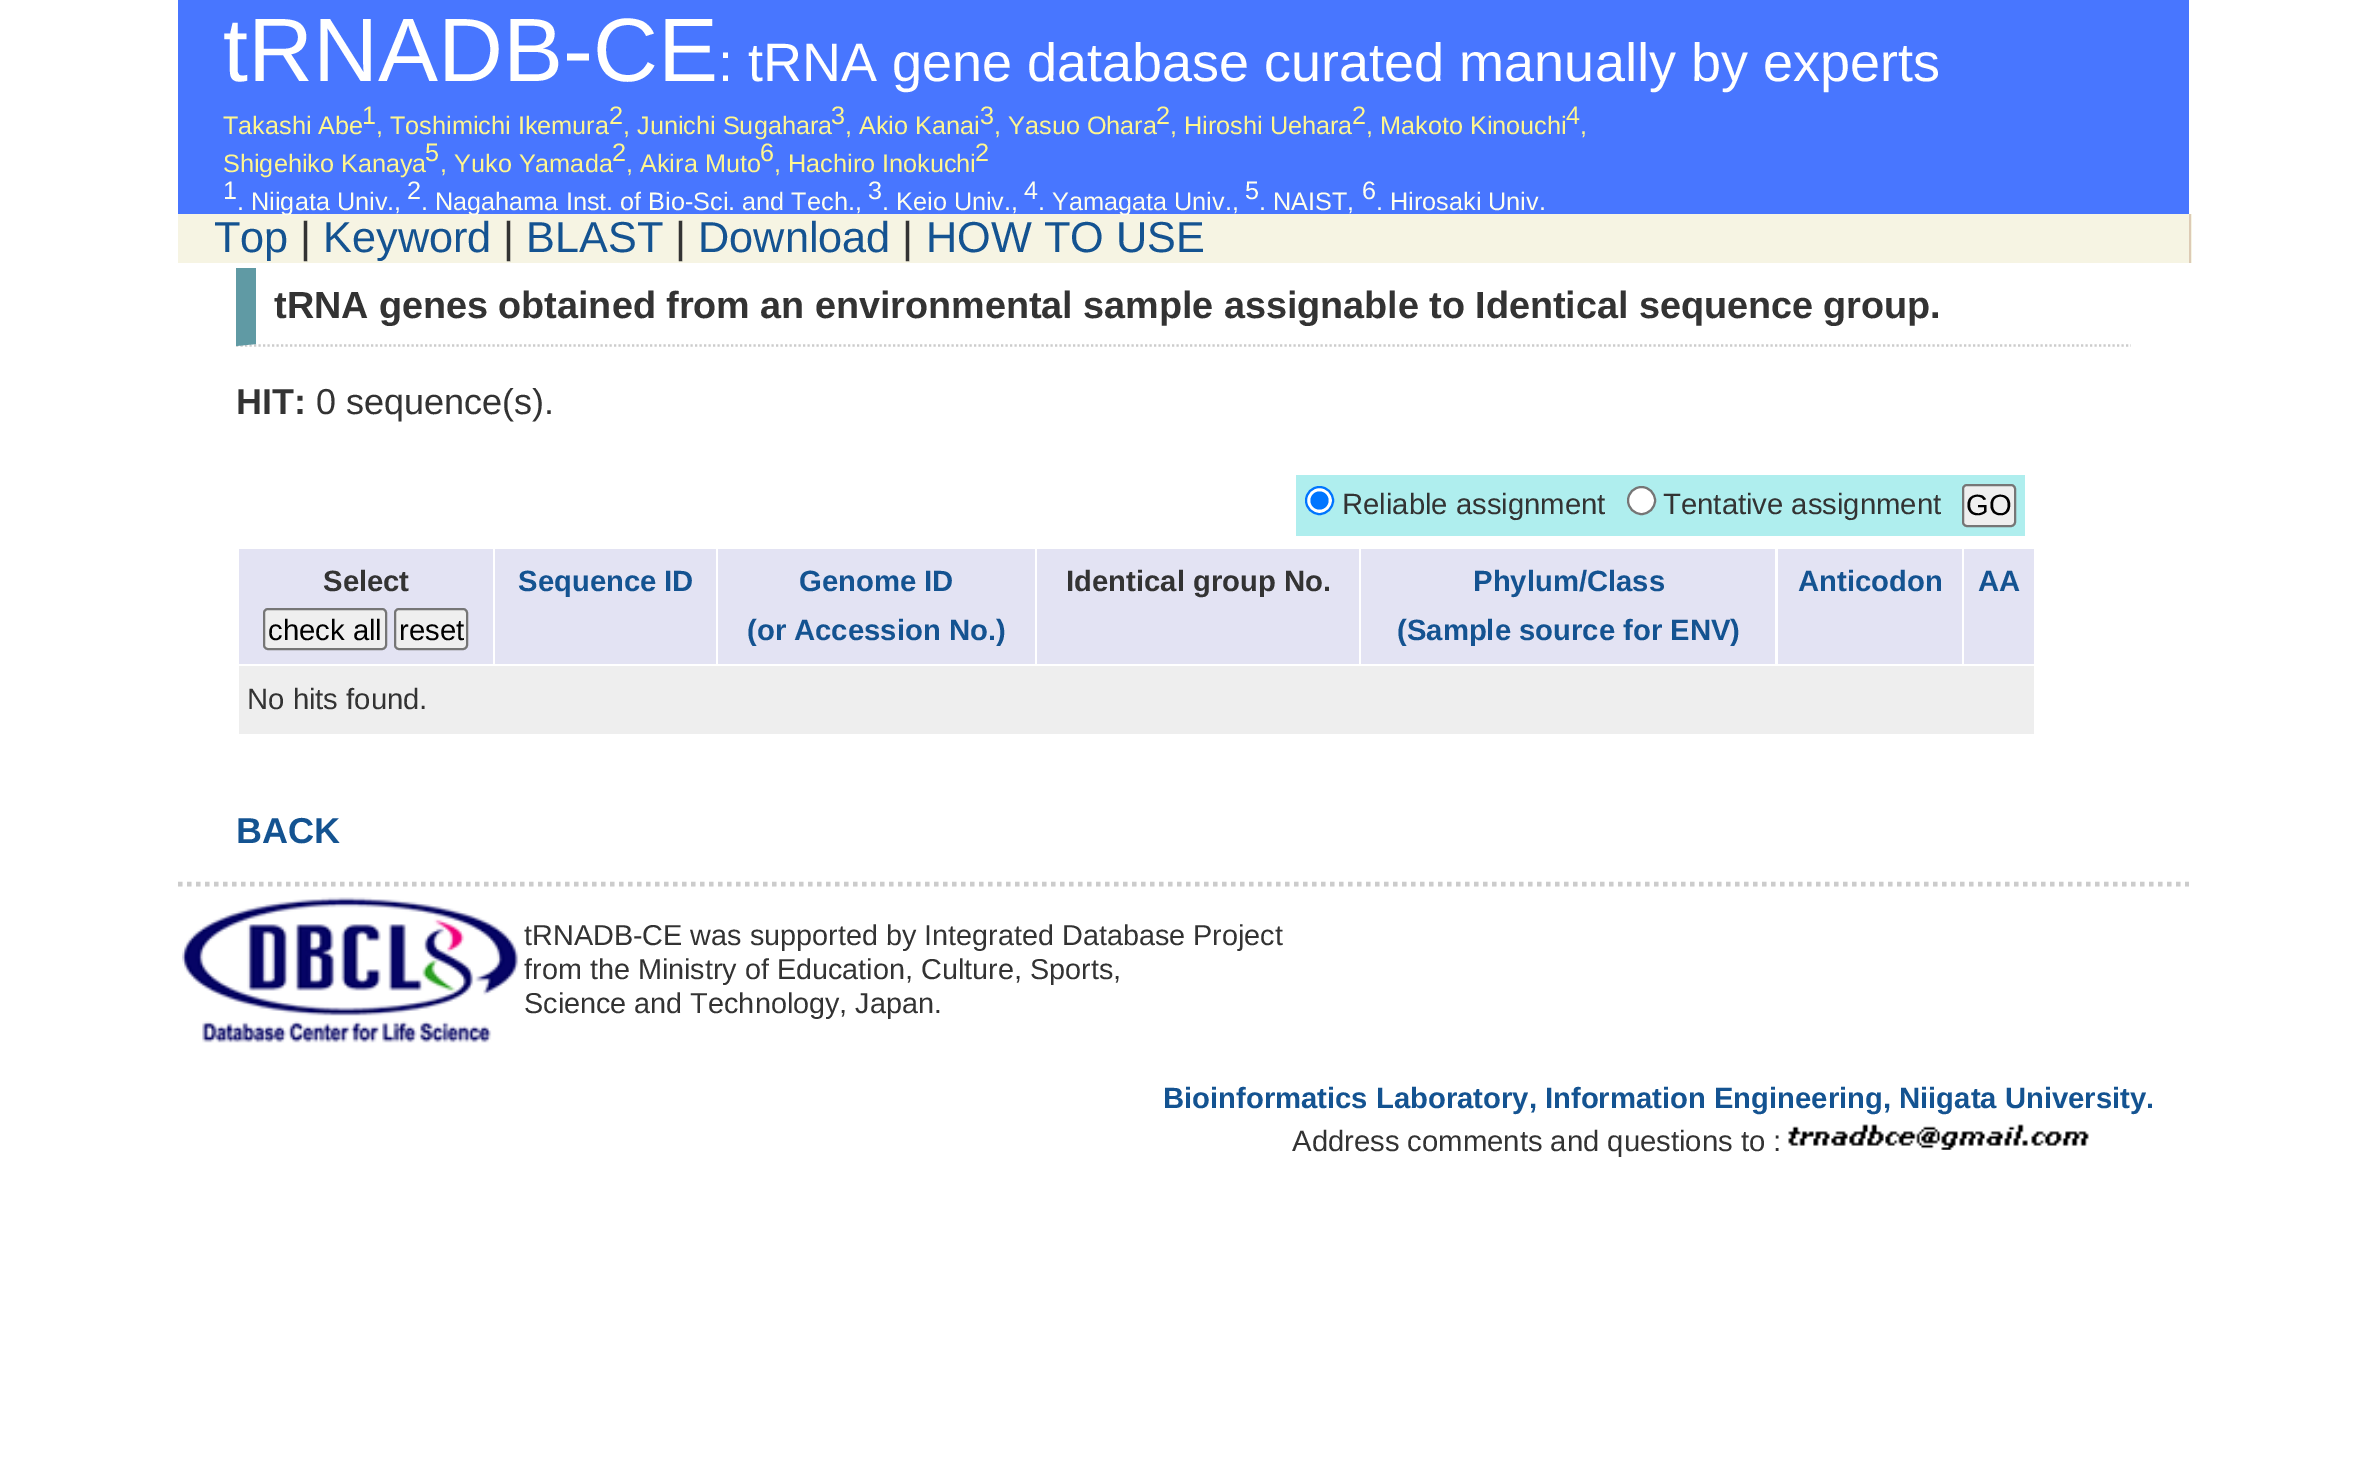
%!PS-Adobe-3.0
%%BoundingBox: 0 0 2367 1479
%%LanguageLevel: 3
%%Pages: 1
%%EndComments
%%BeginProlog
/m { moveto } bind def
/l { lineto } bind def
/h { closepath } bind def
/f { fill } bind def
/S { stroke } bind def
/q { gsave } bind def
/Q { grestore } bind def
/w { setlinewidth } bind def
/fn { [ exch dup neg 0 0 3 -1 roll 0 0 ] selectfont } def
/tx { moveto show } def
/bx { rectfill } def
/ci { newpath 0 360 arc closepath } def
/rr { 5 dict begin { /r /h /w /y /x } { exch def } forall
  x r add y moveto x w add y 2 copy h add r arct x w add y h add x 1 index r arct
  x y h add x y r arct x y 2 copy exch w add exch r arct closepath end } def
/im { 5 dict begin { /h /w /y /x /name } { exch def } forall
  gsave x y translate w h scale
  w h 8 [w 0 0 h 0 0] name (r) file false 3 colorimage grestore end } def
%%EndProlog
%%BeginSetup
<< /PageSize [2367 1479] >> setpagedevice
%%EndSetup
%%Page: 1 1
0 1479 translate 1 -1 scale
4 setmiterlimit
1 setgray
0 0 2367 1479 bx
0.282 0.463 1 setrgbcolor
178 0 2011 214 bx
/LiberationSans-Regular 90 fn
1 setgray
(tRNADB-CE) 223 81 tx
/LiberationSans-Regular 54 fn
(: tRNA gene database curated manually by experts) 718 81 tx
/LiberationSans-Regular 25.25 fn
1 0.965 0.561 setrgbcolor
(Takashi Abe) 223 134 tx
(1) 362 124 tx
(, Toshimichi Ikemura) 376 134 tx
(2) 609 124 tx
(, Junichi Sugahara) 623 134 tx
(3) 831 124 tx
(, Akio Kanai) 845 134 tx
(3) 980 124 tx
(, Yasuo Ohara) 994 134 tx
(2) 1156 124 tx
(, Hiroshi Uehara) 1170 134 tx
(2) 1352 124 tx
(, Makoto Kinouchi) 1366 134 tx
(4) 1566 124 tx
(,) 1580 134 tx
(Shigehiko Kanaya) 223 172 tx
(5) 425 161 tx
(, Yuko Yamada) 440 172 tx
(2) 612 161 tx
(, Akira Muto) 626 172 tx
(6) 760 161 tx
(, Hachiro Inokuchi) 774 172 tx
(2) 975 161 tx
1 1 0.933 setrgbcolor
(1) 223 199 tx
0.965 0.957 0.89 setrgbcolor
178 214 2014 49 bx
1 1 0.933 setrgbcolor
(. Niigata Univ.,) 237 210 tx
(2) 407 199 tx
(. Nagahama Inst. of Bio-Sci. and Tech.,) 421 210 tx
(3) 868 199 tx
(. Keio Univ.,) 882 210 tx
(4) 1024 199 tx
(. Yamagata Univ.,) 1038 210 tx
(5) 1245 199 tx
(. NAIST,) 1259 210 tx
(6) 1362 199 tx
(. Hirosaki Univ.) 1376 210 tx
0.867 0.796 0.71 setrgbcolor
2189 214 2 49 bx
/LiberationSans-Regular 43.25 fn
0.078 0.325 0.569 setrgbcolor
(Top) 214 252 tx
0.2 setgray
(|) 300 252 tx
0.078 0.325 0.569 setrgbcolor
(Keyword) 323 252 tx
0.2 setgray
(|) 503 252 tx
0.078 0.325 0.569 setrgbcolor
(BLAST) 526 252 tx
0.2 setgray
(|) 675 252 tx
0.078 0.325 0.569 setrgbcolor
(Download) 698 252 tx
0.2 setgray
(|) 902 252 tx
0.078 0.325 0.569 setrgbcolor
(HOW TO USE) 926 252 tx
0.8 setgray
2.2 w
[2.25 2.25] 0 setdash
236 345.5 m 2131 345.5 l S
0.376 0.604 0.643 setrgbcolor
236 346 m 236 268 l 256 268 l 256 344 l h f
/LiberationSans-Bold 37.8 fn
0.2 setgray
274 318 m -0.25 0 32 (tRNA genes obtained from an environmental sample assignable to Identical sequence group.) widthshow
/LiberationSans-Bold 36 fn
(HIT:) 236 414 tx
/LiberationSans-Regular 36 fn
(0 sequence\(s\).) 316 414 tx
0.686 0.933 0.933 setrgbcolor
1296 475 729 61 bx
1 setgray
1319.5 500.5 13.5 ci q f Q
0 0.459 1 setrgbcolor
2 w
[] 0 setdash
S
1319.5 500.5 9 ci f
/LiberationSans-Regular 29.25 fn
0.2 setgray
(Reliable assignment) 1342 514 tx
1 setgray
1641.5 500.5 13.5 ci q f Q
0.463 setgray
S
0.2 setgray
(Tentative assignment) 1663 514 tx
0.937 setgray
1963 485 52 41 4 rr q f Q
0.463 setgray
S
0 setgray
(GO) 1966 515 tx
0.89 0.89 0.953 setrgbcolor
239 549 254 115 bx
/LiberationSans-Bold 29.25 fn
0.2 setgray
(Select) 323 591 tx
0.937 setgray
264 609 122 40 4 rr q f Q
0.463 setgray
S
/LiberationSans-Regular 29.25 fn
0 setgray
(check all) 268 640 tx
0.937 setgray
395 609 72 40 4 rr q f Q
0.463 setgray
S
0 setgray
(reset) 399 640 tx
0.89 0.89 0.953 setrgbcolor
495 549 221 115 bx
/LiberationSans-Bold 29.25 fn
0.078 0.325 0.569 setrgbcolor
(Sequence ID) 518 591 tx
0.89 0.89 0.953 setrgbcolor
718 549 317 115 bx
0.078 0.325 0.569 setrgbcolor
(Genome ID) 799 591 tx
(\(or Accession No.\)) 747 640 tx
0.89 0.89 0.953 setrgbcolor
1037 549 322 115 bx
0.2 setgray
(Identical group No.) 1066 591 tx
0.89 0.89 0.953 setrgbcolor
1361 549 414 115 bx
0.078 0.325 0.569 setrgbcolor
(Phylum/Class) 1473 591 tx
(\(Sample source for ENV\)) 1397 640 tx
0.89 0.89 0.953 setrgbcolor
1778 549 184 115 bx
0.078 0.325 0.569 setrgbcolor
(Anticodon) 1798 591 tx
0.89 0.89 0.953 setrgbcolor
1964 549 70 115 bx
0.078 0.325 0.569 setrgbcolor
(AA) 1978 591 tx
0.933 setgray
239 666 1795 68 bx
/LiberationSans-Regular 29.25 fn
0.2 setgray
(No hits found.) 247 709 tx
/LiberationSans-Bold 36 fn
0.078 0.325 0.569 setrgbcolor
(BACK) 236 843 tx
0.8 setgray
4.5 w
[4.5 4.5] 0 setdash
178 884 m 2189 884 l S
(image0.raw) 182 897 337 146 im
/LiberationSans-Regular 28.8 fn
0.2 setgray
(tRNADB-CE was supported by Integrated Database Project) 524 945 tx
(from the Ministry of Education, Culture, Sports,) 524 979 tx
(Science and Technology, Japan.) 524 1013 tx
/LiberationSans-Bold 29.25 fn
0.078 0.325 0.569 setrgbcolor
(Bioinformatics Laboratory, Information Engineering, Niigata University.) 1163 1108 tx
/LiberationSans-Regular 29.25 fn
0.2 setgray
(Address comments and questions to :) 1292 1151 tx
(image1.raw) 1788 1124 301 26 im
showpage
%%EOF
